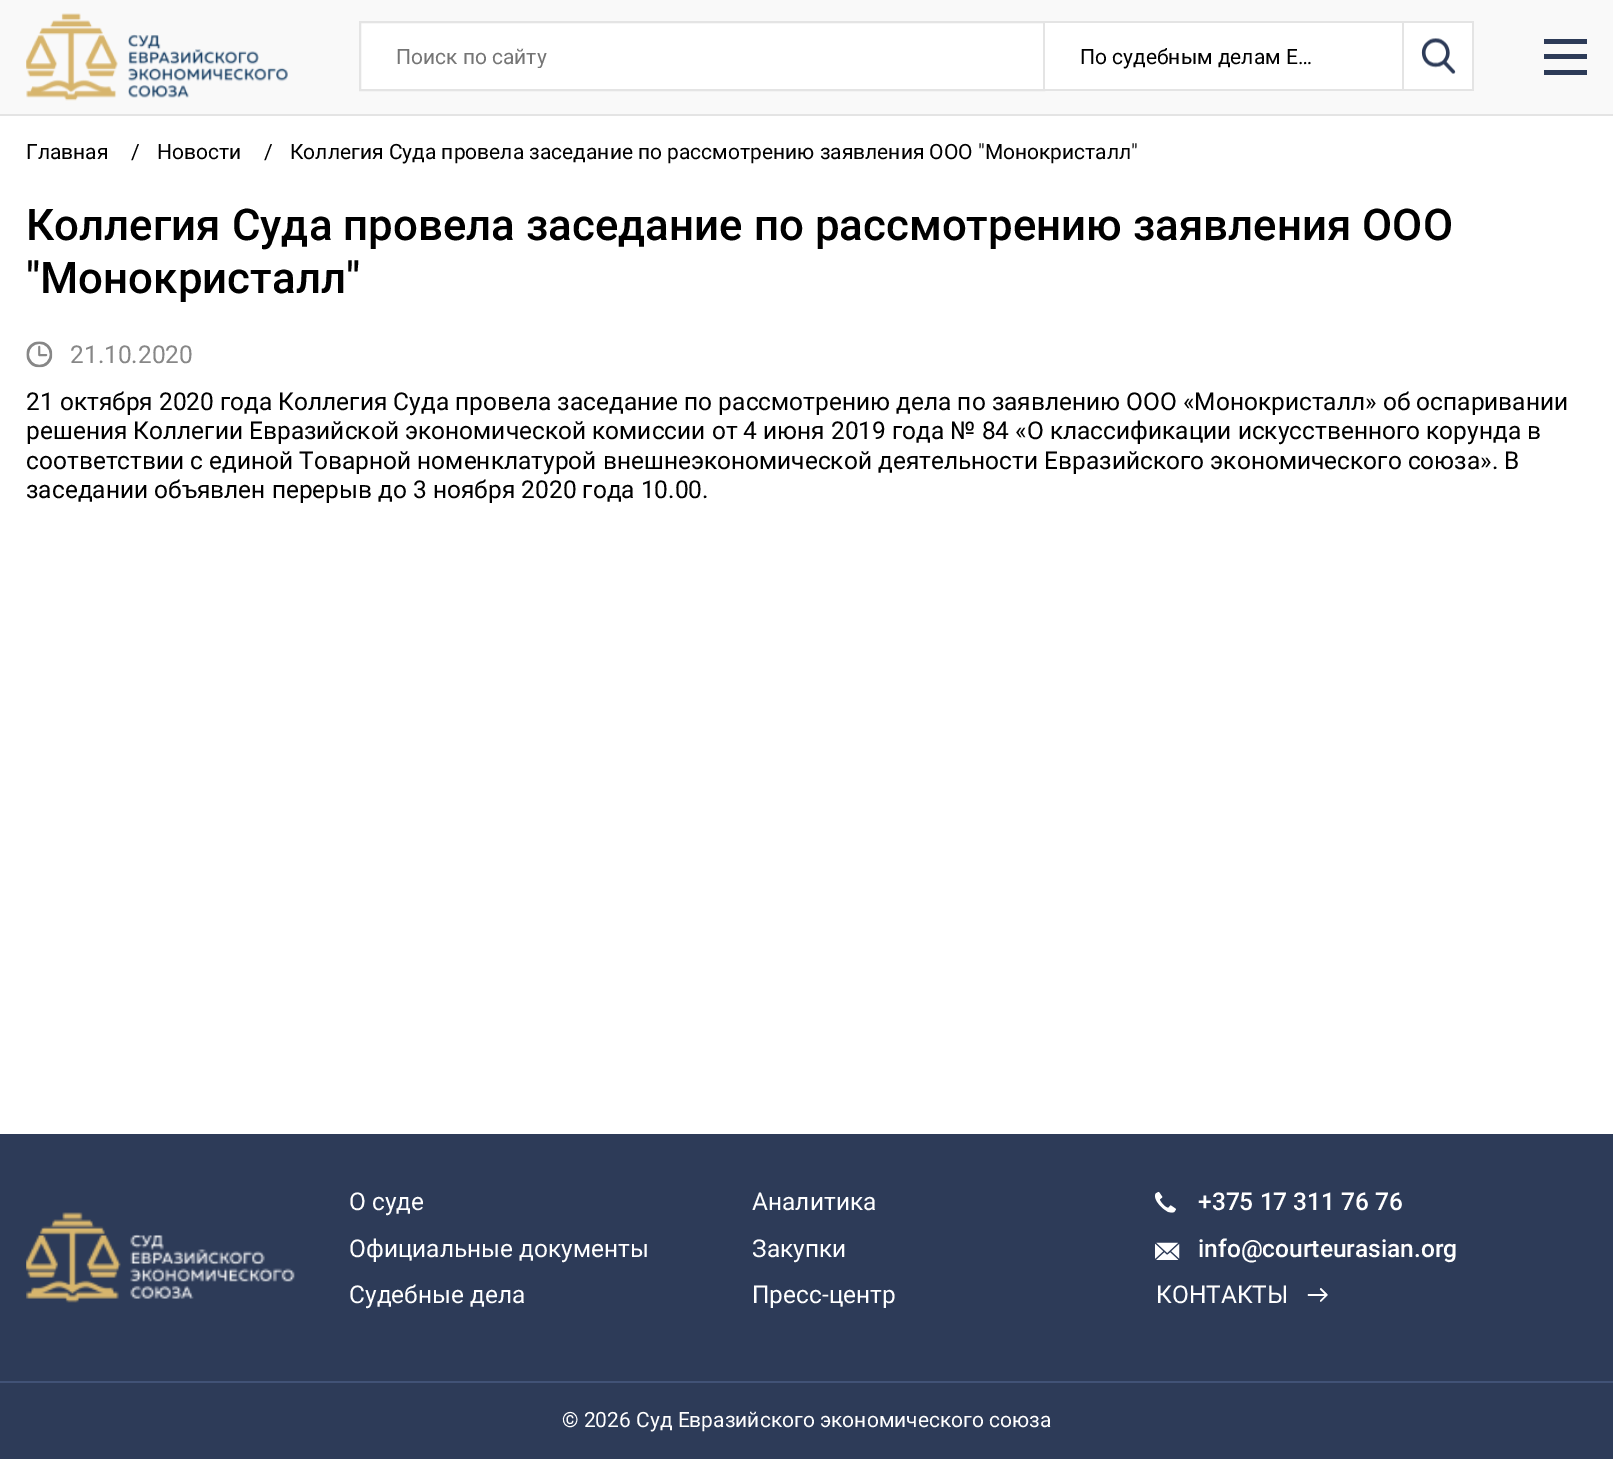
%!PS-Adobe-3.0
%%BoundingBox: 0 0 1613 1459
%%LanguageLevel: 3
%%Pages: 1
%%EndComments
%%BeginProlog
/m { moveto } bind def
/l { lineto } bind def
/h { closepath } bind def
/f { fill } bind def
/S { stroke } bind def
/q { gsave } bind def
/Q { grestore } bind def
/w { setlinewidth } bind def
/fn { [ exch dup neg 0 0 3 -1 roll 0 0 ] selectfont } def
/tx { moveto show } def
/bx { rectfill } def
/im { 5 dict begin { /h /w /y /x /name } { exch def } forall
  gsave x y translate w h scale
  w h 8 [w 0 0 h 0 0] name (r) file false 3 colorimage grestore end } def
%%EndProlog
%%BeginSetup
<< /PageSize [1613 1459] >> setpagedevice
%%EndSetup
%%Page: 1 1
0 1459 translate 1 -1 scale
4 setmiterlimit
1 setgray
0 0 1613 1459 bx
0.976 setgray
0 0 1613 114 bx
0.894 setgray
0 114 1613 2 bx
(image0.raw) 26 13 262 88 im
1 setgray
360 22 m 1044 22 l 1044 90 l 360 90 l h q f Q
0.894 setgray
2 w
S
q
396 44 605 24 rectclip
/Roboto-Regular 21 fn
0.459 setgray
(Поиск по сайту) 396 64 tx
Q
1 setgray
1045 23 357 66 bx
0.894 setgray
1045 21 429 2 bx
1402 21 2 70 bx
1045 89 359 2 bx
/Roboto-Regular 21 fn
0 setgray
(По судебным делам Е…) 1080 64 tx
1 setgray
1404 23 68 66 bx
0.894 setgray
1472 21 2 70 bx
1404 89 70 2 bx
(image1.raw) 1421 38 35 36 im
0.176 0.231 0.345 setrgbcolor
1544 39 43 5 bx
1544 54 43 5 bx
1544 70 43 5 bx
0 setgray
(Главная) 26 159 tx
(/) 131 159 tx
(Новости) 157 159 tx
(/) 264 159 tx
(Коллегия Суда провела заседание по рассмотрению заявления ООО "Монокристалл") 290 159 tx
/Roboto-Medium 43.75 fn
(Коллегия Суда провела заседание по рассмотрению заявления ООО) 26 240 tx
("Монокристалл") 26 293 tx
(image2.raw) 26 341 27 27 im
/Roboto-Regular 24.5 fn
0.529 setgray
(21.10.2020) 70 363 tx
0 setgray
(21 октября 2020 года Коллегия Суда провела заседание по рассмотрению дела по заявлению ООО «Монокристалл» об оспаривании) 26 410 tx
(решения Коллегии Евразийской экономической комиссии от 4 июня 2019 года № 84 «О классификации искусственного корунда в) 26 439 tx
(соответствии с единой Товарной номенклатурой внешнеэкономической деятельности Евразийского экономического союза». В) 26 469 tx
(заседании объявлен перерыв до 3 ноября 2020 года 10.00.) 26 498 tx
0.176 0.231 0.345 setrgbcolor
0 1134 1613 325 bx
(image3.raw) 26 1212 269 91 im
1 setgray
(О суде) 349 1210 tx
(Официальные документы) 349 1257 tx
(Судебные дела) 349 1303 tx
(Аналитика) 752 1210 tx
(Закупки) 752 1257 tx
(Пресс-центр) 752 1303 tx
(image4.raw) 1155 1191 21 22 im
/Roboto-Medium 24.5 fn
(+375 17 311 76 76) 1198 1210 tx
(image5.raw) 1155 1242 25 18 im
(info@courteurasian.org) 1198 1257 tx
/Roboto-Regular 24.5 fn
(КОНТАКТЫ) 1156 1303 tx
(image6.raw) 1307 1288 21 14 im
0.255 0.322 0.463 setrgbcolor
0 1381 1613 2 bx
/Roboto-Regular 21 fn
1 setgray
(© 2026 Суд Евразийского экономического союза) 562 1427 tx
showpage
%%EOF
